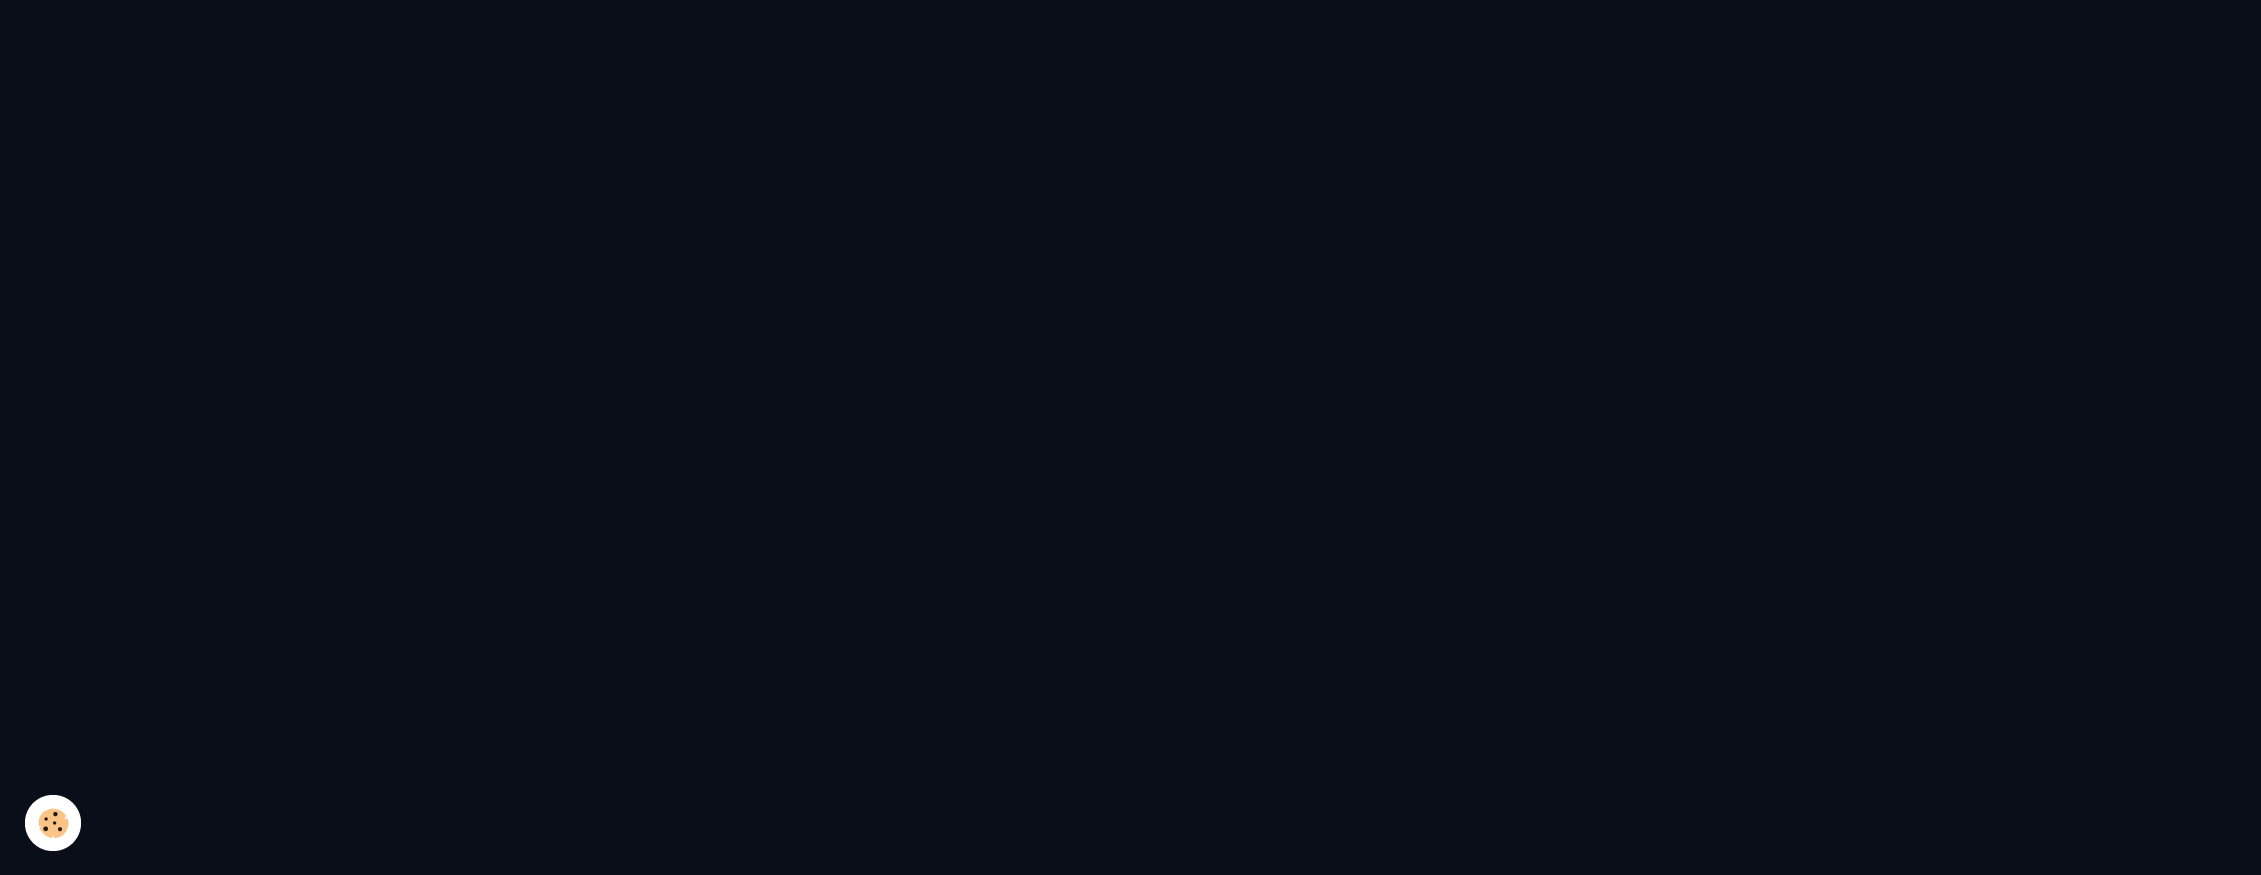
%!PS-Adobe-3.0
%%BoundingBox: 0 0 2261 875
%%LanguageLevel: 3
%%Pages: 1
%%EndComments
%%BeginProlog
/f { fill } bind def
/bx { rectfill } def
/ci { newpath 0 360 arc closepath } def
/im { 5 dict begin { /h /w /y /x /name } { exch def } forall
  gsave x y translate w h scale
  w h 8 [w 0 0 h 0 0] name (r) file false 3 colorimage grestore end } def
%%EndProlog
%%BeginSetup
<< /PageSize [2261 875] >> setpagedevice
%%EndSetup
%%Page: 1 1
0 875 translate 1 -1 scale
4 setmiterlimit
0.039 0.055 0.098 setrgbcolor
0 0 2261 875 bx
1 setgray
53 823 28 ci f
(image0.raw) 38 808 31 30 im
showpage
%%EOF
